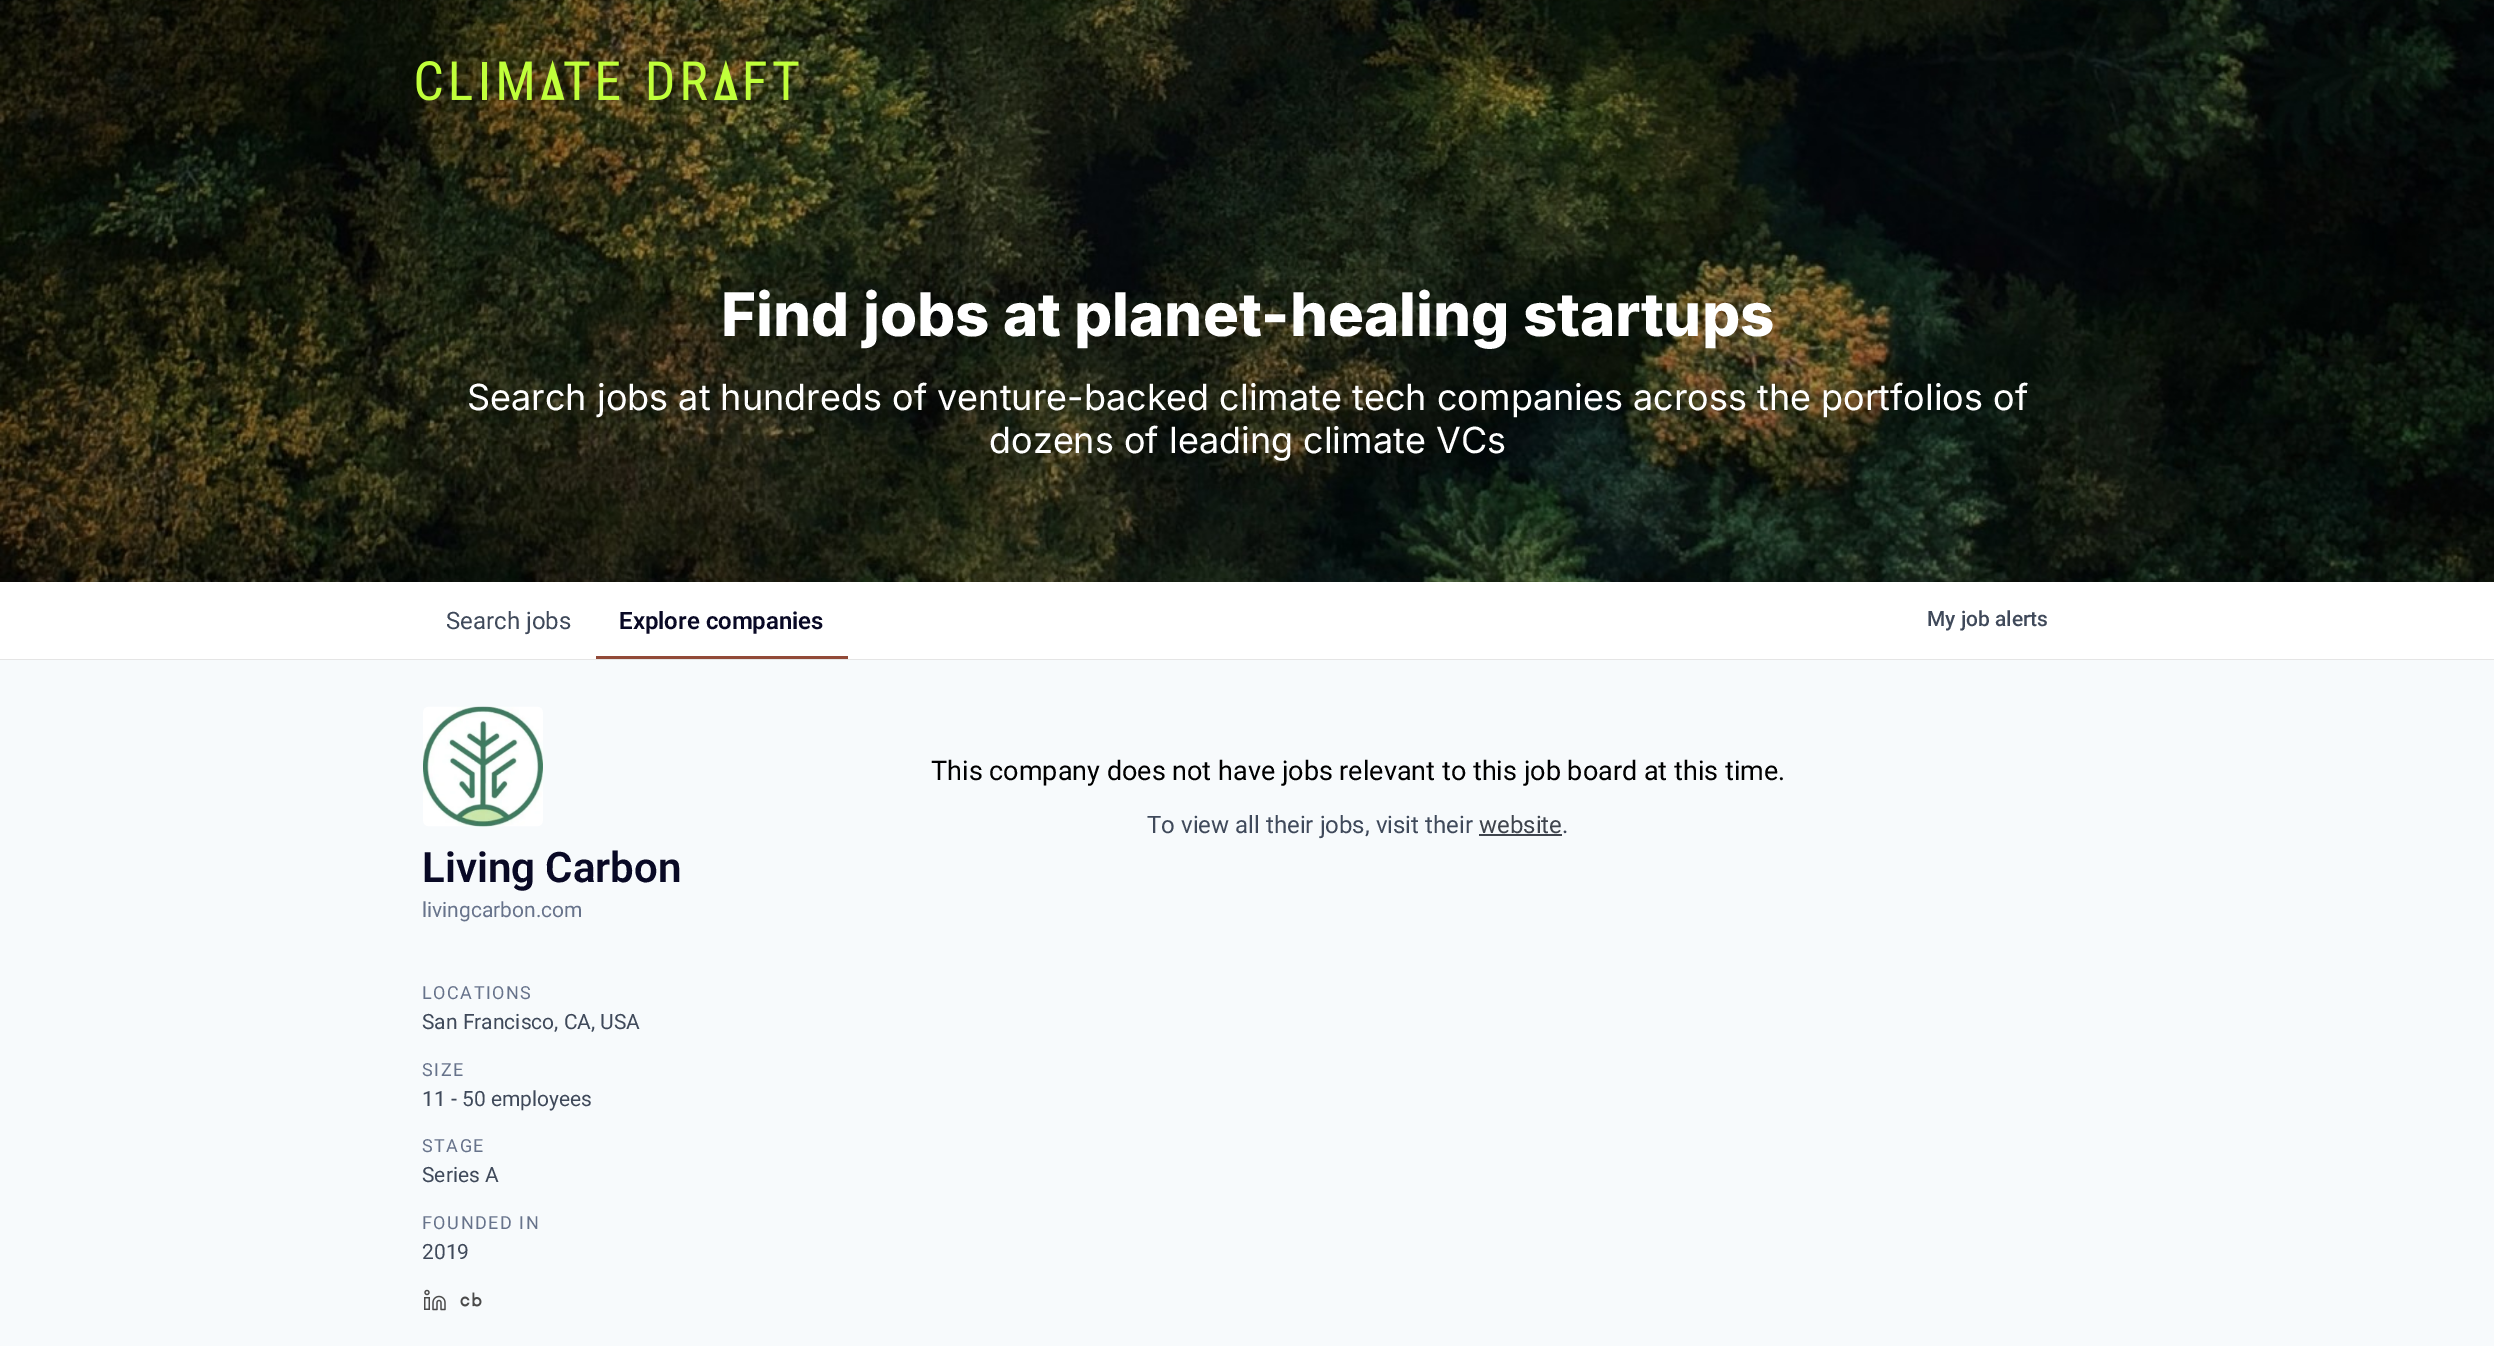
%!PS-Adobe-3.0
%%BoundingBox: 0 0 2494 1346
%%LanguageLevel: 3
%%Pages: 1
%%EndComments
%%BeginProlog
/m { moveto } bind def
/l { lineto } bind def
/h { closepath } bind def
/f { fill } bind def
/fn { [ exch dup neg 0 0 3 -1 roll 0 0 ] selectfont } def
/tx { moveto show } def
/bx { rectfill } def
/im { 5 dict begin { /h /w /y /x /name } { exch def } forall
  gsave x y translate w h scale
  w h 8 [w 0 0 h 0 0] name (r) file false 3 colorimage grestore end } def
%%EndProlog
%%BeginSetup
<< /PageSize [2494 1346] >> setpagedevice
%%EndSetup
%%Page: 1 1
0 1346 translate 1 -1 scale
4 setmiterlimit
0.969 0.98 0.988 setrgbcolor
0 0 2494 1346 bx
(image1.raw) 0 0 2494 582 im
(image0.raw) 416 60 383 41 im
/Inter-ExtraBold 60 fn
1 setgray
(Find jobs at planet-healing startups) 721 336 tx
/Inter-Regular 36 fn
(Search jobs at hundreds of venture-backed climate tech companies across the portfolios of) 467 410 tx
(dozens of leading climate VCs) 989 453 tx
0.898 setgray
0 658 m 0 660 l 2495 660 l 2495 584 l 2494 584 l 2494 658 l h f
1 setgray
0 582 2494 77 bx
/Roboto-Regular 24 fn
0.247 0.286 0.353 setrgbcolor
(Search jobs) 446 629 tx
/Roboto-SemiBold 24 fn
0.035 0.035 0.145 setrgbcolor
(Explore companies) 619 629 tx
0.573 0.29 0.22 setrgbcolor
596 656 252 3 bx
/Roboto-Medium 21 fn
0.247 0.286 0.353 setrgbcolor
(My job alerts) 1927 626 tx
/Roboto-Regular 27 fn
0 setgray
(This company does not have jobs relevant to this job board at this time.) 931 780 tx
/Roboto-Regular 24 fn
0.247 0.286 0.353 setrgbcolor
(To view all their jobs, visit their) 1147 833 tx
0.247 0.267 0.302 setrgbcolor
(website) 1479 833 tx
1479 834 83 2 bx
0.247 0.286 0.353 setrgbcolor
(.) 1562 833 tx
(image2.raw) 423 706 120 121 im
/Roboto-SemiBold 42 fn
0.035 0.035 0.145 setrgbcolor
(Living Carbon) 422 882 tx
/Roboto-Regular 21 fn
0.404 0.451 0.545 setrgbcolor
(livingcarbon.com) 422 917 tx
/Roboto-Regular 18 fn
422 999 m 1.5 0 (LOCATIONS) ashow
/Roboto-Regular 21 fn
0.247 0.286 0.353 setrgbcolor
(San Francisco, CA, USA) 422 1029 tx
/Roboto-Regular 18 fn
0.404 0.451 0.545 setrgbcolor
422 1076 m 1.5 0 (SIZE) ashow
/Roboto-Regular 21 fn
0.247 0.286 0.353 setrgbcolor
(11 - 50 employees) 422 1106 tx
/Roboto-Regular 18 fn
0.404 0.451 0.545 setrgbcolor
422 1152 m 1.5 0 (STAGE) ashow
/Roboto-Regular 21 fn
0.247 0.286 0.353 setrgbcolor
(Series A) 422 1182 tx
/Roboto-Regular 18 fn
0.404 0.451 0.545 setrgbcolor
422 1229 m 1.5 0 (FOUNDED IN) ashow
/Roboto-Regular 21 fn
0.247 0.286 0.353 setrgbcolor
(2019) 422 1259 tx
(image3.raw) 424 1289 22 22 im
(image4.raw) 460 1292 22 15 im
showpage
%%EOF
